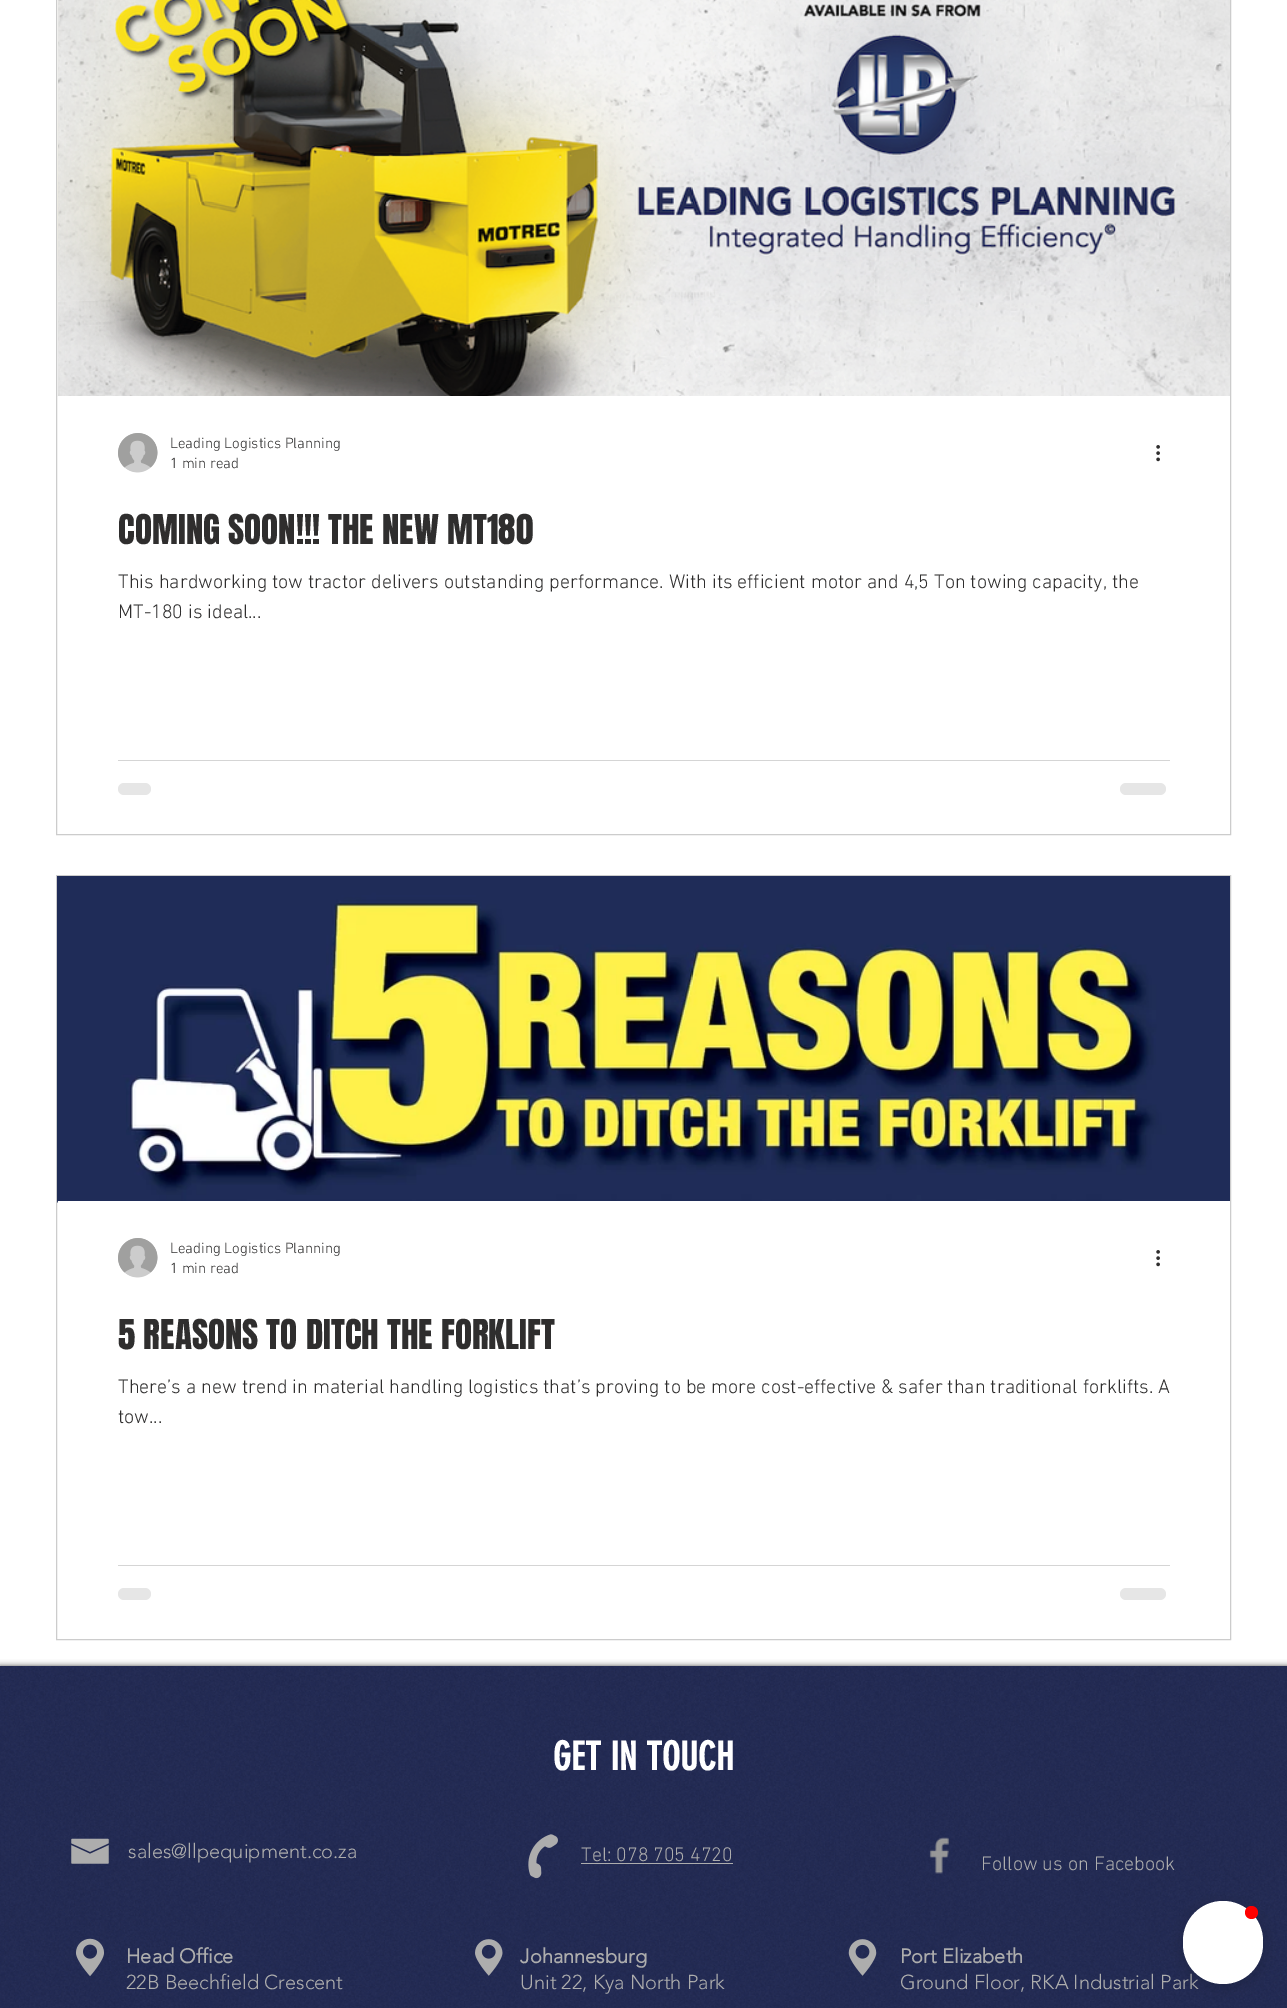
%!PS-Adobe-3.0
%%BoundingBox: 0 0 1287 2008
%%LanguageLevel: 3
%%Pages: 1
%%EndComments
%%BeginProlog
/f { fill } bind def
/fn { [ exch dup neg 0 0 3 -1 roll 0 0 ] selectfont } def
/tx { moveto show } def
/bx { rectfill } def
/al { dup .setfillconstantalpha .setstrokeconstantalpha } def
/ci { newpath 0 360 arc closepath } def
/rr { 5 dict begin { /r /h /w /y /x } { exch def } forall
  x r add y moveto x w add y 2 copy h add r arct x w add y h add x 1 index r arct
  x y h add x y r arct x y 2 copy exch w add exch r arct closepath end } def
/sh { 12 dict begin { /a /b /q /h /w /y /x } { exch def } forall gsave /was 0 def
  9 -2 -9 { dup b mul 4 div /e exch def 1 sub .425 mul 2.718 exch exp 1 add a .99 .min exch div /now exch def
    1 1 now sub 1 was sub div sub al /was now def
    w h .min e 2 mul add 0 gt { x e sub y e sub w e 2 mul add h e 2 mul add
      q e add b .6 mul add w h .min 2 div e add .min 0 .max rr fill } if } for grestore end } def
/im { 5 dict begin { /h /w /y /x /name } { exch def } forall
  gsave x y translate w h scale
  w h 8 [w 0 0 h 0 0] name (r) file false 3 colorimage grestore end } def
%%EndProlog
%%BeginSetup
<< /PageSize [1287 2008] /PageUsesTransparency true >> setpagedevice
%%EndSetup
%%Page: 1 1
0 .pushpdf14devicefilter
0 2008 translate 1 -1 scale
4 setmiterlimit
1 setgray
0 0 1287 2008 bx
0.8 setgray
56.5 -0.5 1174 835 rectstroke
(image0.raw) 57 0 1173 398 im
(image1.raw) 58 0 1172 396 im
1 setgray
58 396 1172 2 bx
(image2.raw) 118 433 40 40 im
/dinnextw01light-Light 15 fn
0.184 0.18 0.18 setrgbcolor
(Leading Logistics Planning) 170 448 tx
(1 min read) 170 468 tx
(image3.raw) 1156 445 4 17 im
/Anton-Regular 35 fn
(COMING SOON!!! THE NEW MT180) 118 544 tx
/dinnextw01light-Light 20 fn
(This hardworking tow tractor delivers outstanding performance. With its efficient motor and 4,5 Ton towing capacity, the) 118 588 tx
(MT-180 is ideal...) 118 618 tx
0.835 setgray
118 760 1052 1 bx
0.902 setgray
118 783 33 12 6 rr f
1120 783 46 12 6 rr f
0.8 setgray
56.5 875.5 1174 764 rectstroke
(image4.raw) 57 876 1 327 im
(image5.raw) 58 876 1172 325 im
(image2.raw) 118 1238 40 40 im
/dinnextw01light-Light 15 fn
0.184 0.18 0.18 setrgbcolor
(Leading Logistics Planning) 170 1253 tx
(1 min read) 170 1273 tx
(image3.raw) 1156 1250 4 17 im
/Anton-Regular 35 fn
(5 REASONS TO DITCH THE FORKLIFT) 118 1349 tx
/dinnextw01light-Light 20 fn
(There’s a new trend in material handling logistics that’s proving to be more cost-effective & safer than traditional forklifts. A) 118 1393 tx
(tow...) 118 1423 tx
0.835 setgray
118 1565 1052 1 bx
0.902 setgray
118 1588 33 12 6 rr f
1120 1588 46 12 6 rr f
0 setgray
0 1666 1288 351 0 3 0.7 sh
0.133 0.165 0.329 setrgbcolor
0 1666 1287 342 bx
(image6.raw) 0 1666 1287 342 im
/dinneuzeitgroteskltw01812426-Bold 38.75 fn
1 setgray
(GET IN TOUCH) 553 1770 tx
(image7.raw) 71 1838 38 26 im
/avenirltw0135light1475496-Light 20 fn
0.678 setgray
(sales@llpequipment.co.za) 128 1858 tx
(image8.raw) 528 1834 30 45 im
/dinnextw01light-Light 20 fn
(Tel: 078 705 4720) 581 1861 tx
581 1863 152 1 bx
(image9.raw) 929 1837 20 37 im
(Follow us on Facebook) 981 1870 tx
(image10.raw) 76 1938 28 39 im
/avenirltw0135light1475496-Bold 20 fn
(Head Office) 126 1963 tx
/avenirltw0135light1475496-Light 20 fn
(22B Beechfield Crescent) 126 1989 tx
(image11.raw) 475 1939 28 37 im
/avenirltw0135light1475496-Bold 20 fn
(Johannesburg) 520 1963 tx
/avenirltw0135light1475496-Light 20 fn
(Unit 22, Kya North Park) 520 1989 tx
(image12.raw) 848 1939 29 37 im
/avenirltw0135light1475496-Bold 20 fn
(Port Elizabeth) 900 1963 tx
/avenirltw0135light1475496-Light 20 fn
(Ground Floor, RKA Industrial Park) 900 1989 tx
0 setgray
1183 1905 80 83 40 7.5 0.15 sh
1 setgray
1183 1901 80 83 40 rr f
1 0 0 setrgbcolor
1251.5 1912.5 6.5 ci f
.poppdf14devicefilter showpage
%%EOF
